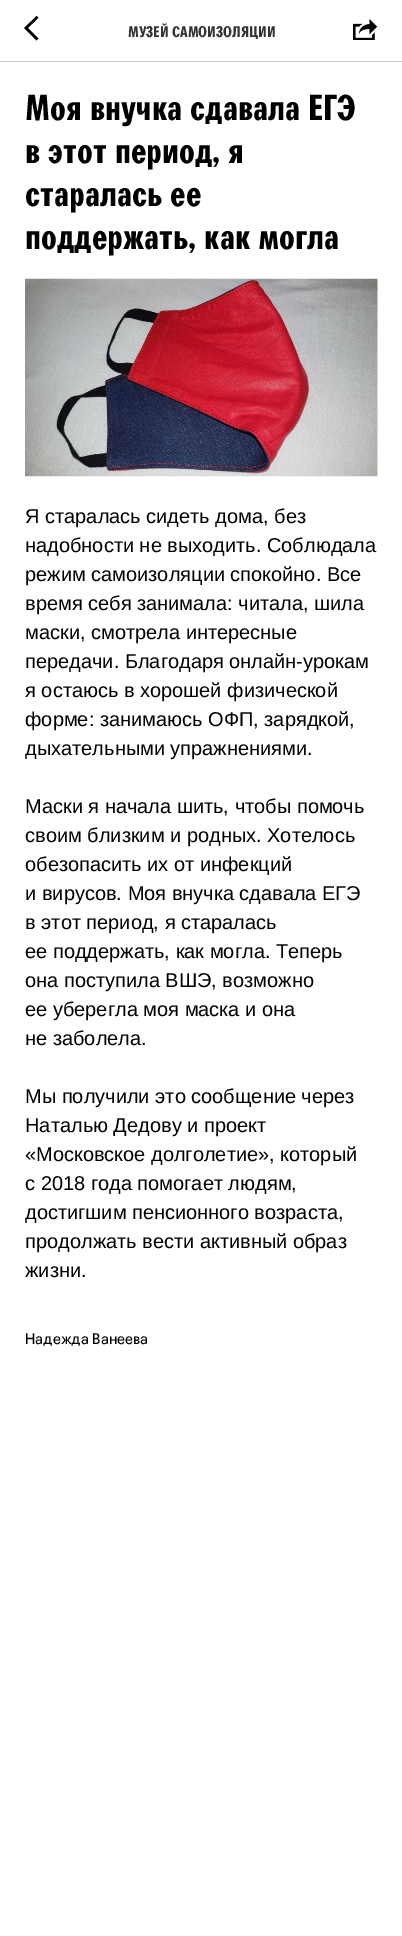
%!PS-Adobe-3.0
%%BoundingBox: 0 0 402 1936
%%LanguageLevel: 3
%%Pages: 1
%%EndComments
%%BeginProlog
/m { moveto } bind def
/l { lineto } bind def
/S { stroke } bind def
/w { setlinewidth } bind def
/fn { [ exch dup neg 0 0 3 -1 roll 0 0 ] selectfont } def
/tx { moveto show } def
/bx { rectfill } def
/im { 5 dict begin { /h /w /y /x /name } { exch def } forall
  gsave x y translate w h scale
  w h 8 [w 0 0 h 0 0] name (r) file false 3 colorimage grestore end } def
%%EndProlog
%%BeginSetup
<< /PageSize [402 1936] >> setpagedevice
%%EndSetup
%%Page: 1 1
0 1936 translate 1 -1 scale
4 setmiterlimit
1 setgray
0 0 402 1936 bx
0.8 setgray
0 61 402 1 bx
0 setgray
2.5 w
37.5 39.5 m 26 28 l 37.5 17 l S
/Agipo-Bold 15 fn
0.2 setgray
(МУЗЕЙ САМОИЗОЛЯЦИИ) 128 37 tx
(image0.raw) 353 19 25 21 im
/Agipo-Bold 35 fn
0 setgray
(Моя внучка сдавала ЕГЭ) 25 120 tx
(в этот период, я) 25 163 tx
(старалась ее) 25 206 tx
(поддержать, как могла) 25 249 tx
(image1.raw) 25 278 353 199 im
/LiberationSans-Regular 20 fn
(Я старалась сидеть дома, без) 25 523 tx
(надобности не выходить. Соблюдала) 25 552 tx
(режим самоизоляции спокойно. Все) 25 581 tx
(время себя занимала: читала, шила) 25 610 tx
(маски, смотрела интересные) 25 639 tx
(передачи. Благодаря онлайн-урокам) 25 668 tx
(я остаюсь в хорошей физической) 25 697 tx
(форме: занимаюсь ОФП, зарядкой,) 25 726 tx
(дыхательными упражнениями.) 25 755 tx
(Маски я начала шить, чтобы помочь) 25 813 tx
(своим близким и родных. Хотелось) 25 842 tx
(обезопасить их от инфекций) 25 871 tx
(и вирусов. Моя внучка сдавала ЕГЭ) 25 900 tx
(в этот период, я старалась) 25 929 tx
(ее поддержать, как могла. Теперь) 25 958 tx
(она поступила ВШЭ, возможно) 25 987 tx
(ее уберегла моя маска и она) 25 1016 tx
(не заболела.) 25 1045 tx
(Мы получили это сообщение через) 25 1103 tx
(Наталью Дедову и проект) 25 1132 tx
(«Московское долголетие», который) 25 1161 tx
(с 2018 года помогает людям,) 25 1190 tx
(достигшим пенсионного возраста,) 25 1219 tx
(продолжать вести активный образ) 25 1248 tx
(жизни.) 25 1277 tx
/Agipo-Regular 15 fn
(Надежда Ванеева) 25 1344 tx
showpage
%%EOF
